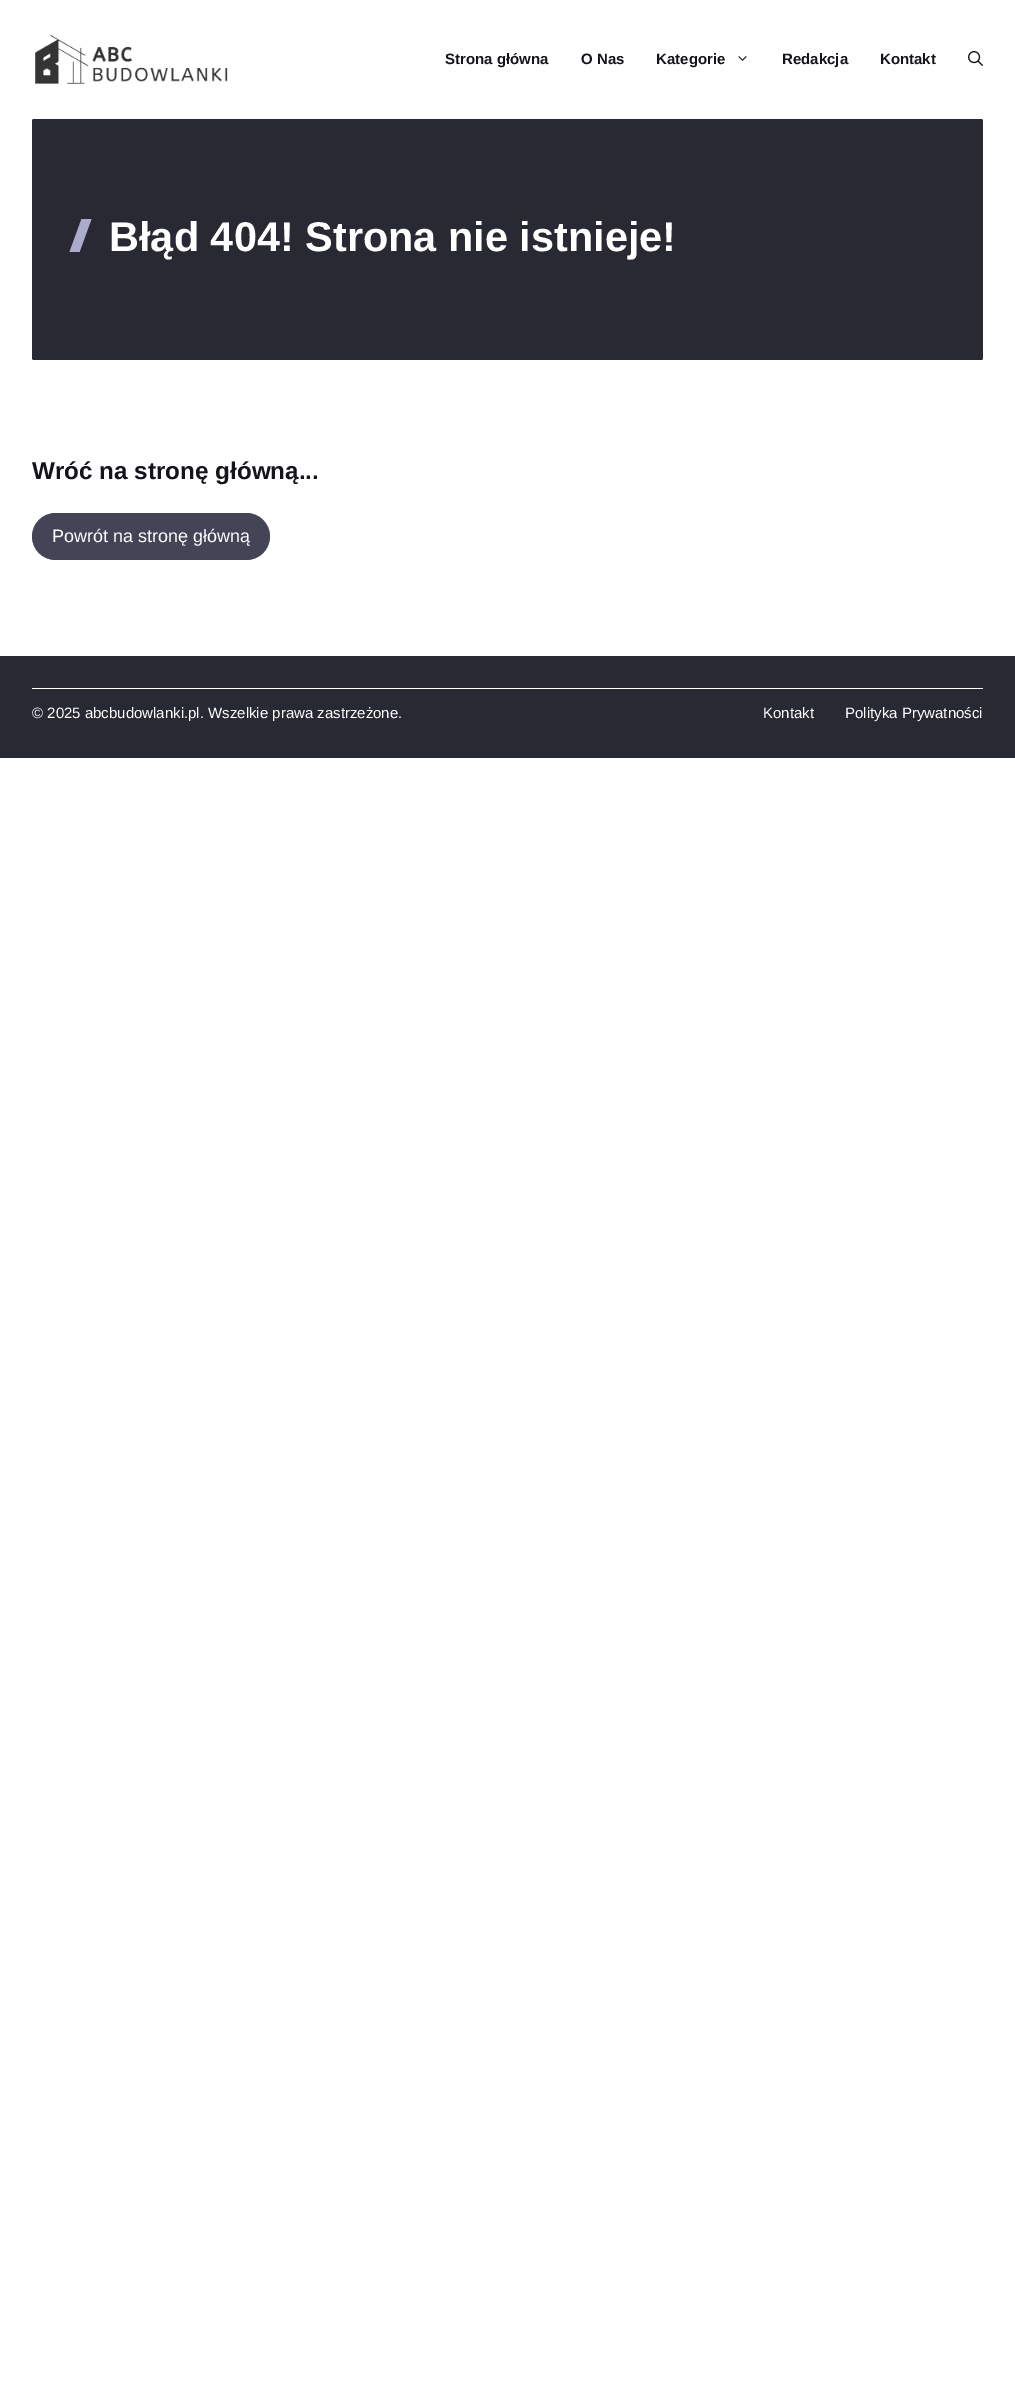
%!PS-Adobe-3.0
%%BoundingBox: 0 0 1015 2384
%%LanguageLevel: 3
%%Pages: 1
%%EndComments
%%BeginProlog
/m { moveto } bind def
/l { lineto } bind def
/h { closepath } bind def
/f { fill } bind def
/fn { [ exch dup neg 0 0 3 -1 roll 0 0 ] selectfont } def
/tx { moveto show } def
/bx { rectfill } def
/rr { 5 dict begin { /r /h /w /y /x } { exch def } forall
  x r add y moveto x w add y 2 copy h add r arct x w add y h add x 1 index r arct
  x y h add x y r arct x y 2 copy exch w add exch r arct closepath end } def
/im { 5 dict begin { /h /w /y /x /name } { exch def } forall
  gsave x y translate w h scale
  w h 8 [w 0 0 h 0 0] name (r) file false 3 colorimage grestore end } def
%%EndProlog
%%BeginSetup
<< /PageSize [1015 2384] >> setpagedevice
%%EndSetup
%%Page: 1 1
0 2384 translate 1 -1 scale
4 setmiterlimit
1 setgray
0 0 1015 2384 bx
(image0.raw) 35 35 193 49 im
/LiberationSans-Bold 15 fn
0.078 0.078 0.102 setrgbcolor
(Strona główna) 445 64 tx
(O Nas) 581 64 tx
(Kategorie) 656 64 tx
(image1.raw) 738 56 9 5 im
(Redakcja) 782 64 tx
(Kontakt) 880 64 tx
(image2.raw) 968 51 15 15 im
0.161 0.161 0.2 setrgbcolor
32 119 951 241 2 rr f
0.671 0.671 0.8 setrgbcolor
69.5 252 m 81.5 219 l 91.5 219 l 79.5 252 l h f
/LiberationSans-Bold 41.5 fn
1 setgray
(Błąd 404! Strona nie istnieje!) 109 251 tx
/LiberationSans-Bold 24.25 fn
0.078 0.078 0.102 setrgbcolor
(Wróć na stronę główną...) 32 479 tx
0.267 0.267 0.341 setrgbcolor
32 513 238 47 23.5 rr f
/LiberationSans-Regular 18 fn
1 setgray
(Powrót na stronę główną) 52 542 tx
0.161 0.161 0.2 setrgbcolor
0 656 1015 102 bx
1 setgray
32 688 951 1 bx
/LiberationSans-Regular 15 fn
(© 2025 abcbudowlanki.pl. Wszelkie prawa zastrzeżone.) 32 718 tx
(Kontakt) 763 718 tx
(Polityka Prywatności) 845 718 tx
showpage
%%EOF
